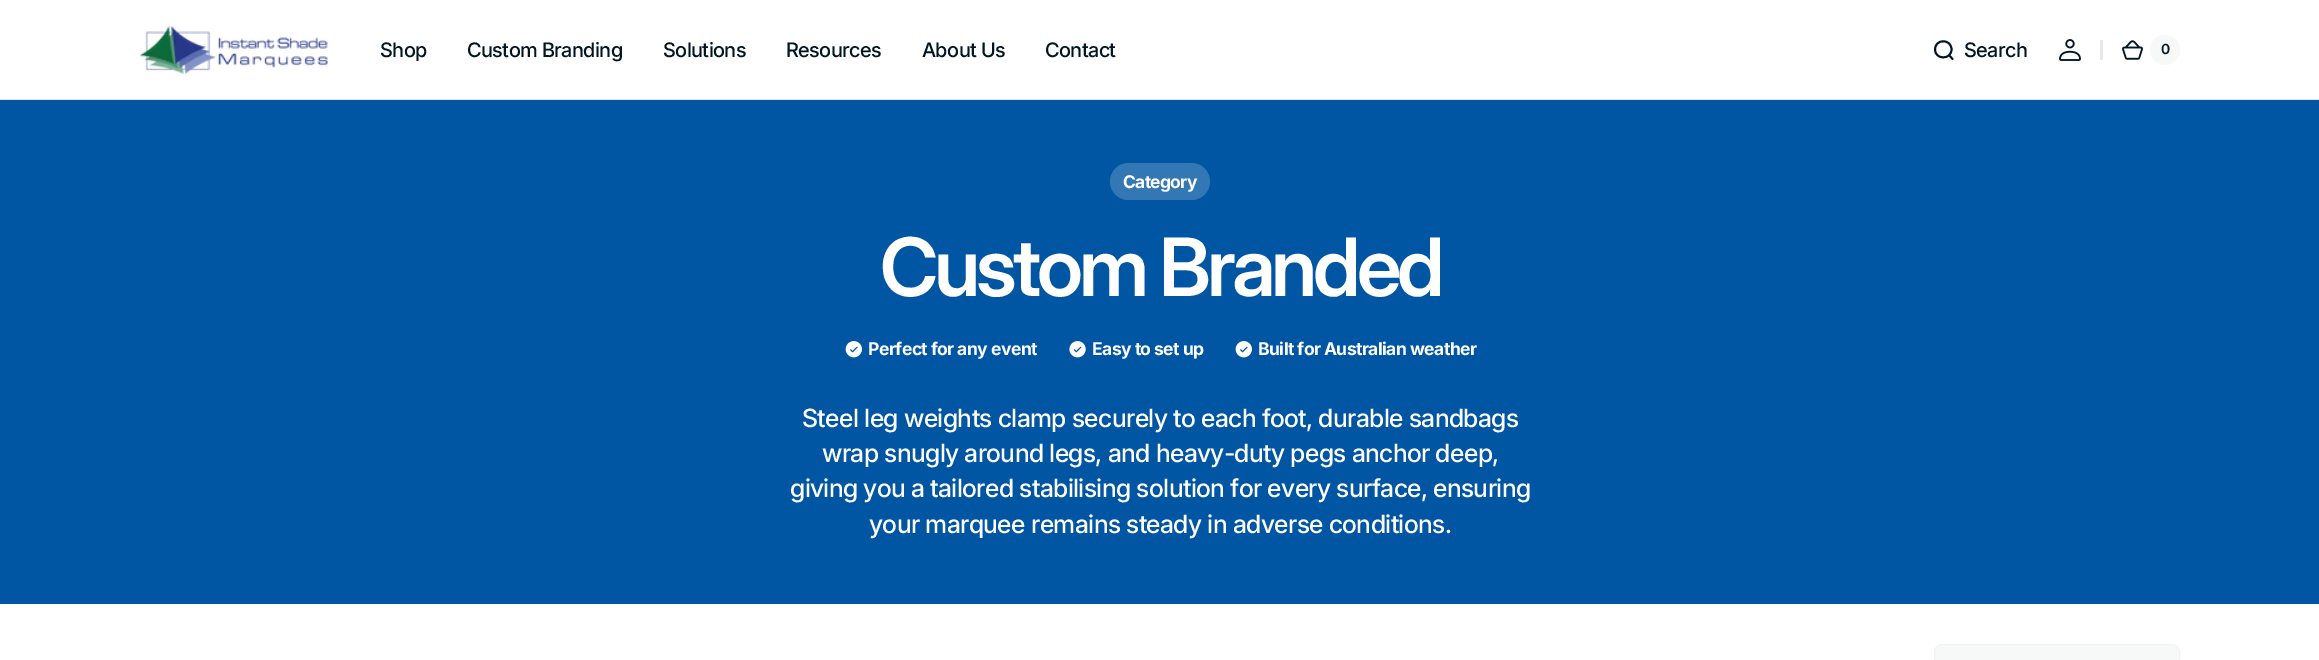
%!PS-Adobe-3.0
%%BoundingBox: 0 0 2319 660
%%LanguageLevel: 3
%%Pages: 1
%%EndComments
%%BeginProlog
/m { moveto } bind def
/l { lineto } bind def
/c { curveto } bind def
/h { closepath } bind def
/f { fill } bind def
/S { stroke } bind def
/q { gsave } bind def
/Q { grestore } bind def
/w { setlinewidth } bind def
/fn { [ exch dup neg 0 0 3 -1 roll 0 0 ] selectfont } def
/bx { rectfill } def
/ci { newpath 0 360 arc closepath } def
/rr { 5 dict begin { /r /h /w /y /x } { exch def } forall
  x r add y moveto x w add y 2 copy h add r arct x w add y h add x 1 index r arct
  x y h add x y r arct x y 2 copy exch w add exch r arct closepath end } def
/im { 5 dict begin { /h /w /y /x /name } { exch def } forall
  gsave x y translate w h scale
  w h 8 [w 0 0 h 0 0] name (r) file false 3 colorimage grestore end } def
%%EndProlog
%%BeginSetup
<< /PageSize [2319 660] >> setpagedevice
%%EndSetup
%%Page: 1 1
0 660 translate 1 -1 scale
4 setmiterlimit
1 setgray
0 0 2319 660 bx
(image0.raw) 140 26 188 48 im
/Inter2-Medium 20 fn
0.004 0.086 0.141 setrgbcolor
380 57 m -0.6 0 (Shop) ashow
467 57 m -0.6 0 (Custom Branding) ashow
663 57 m -0.6 0 (Solutions) ashow
786 57 m -0.6 0 (Resources) ashow
922 57 m -0.6 0 (About Us) ashow
1045 57 m -0.6 0 (Contact) ashow
1.9 w
1 setlinecap
1949 55 m 1952.5 59 l 1951.5 49.5 m 1951.5 60 1935 60 1935 49.5 c 1935 38.5 1951.5 38.5 1951.5 49.5 c h S
1964 57 m -0.6 0 (Search) ashow
(image1.raw) 2059 39 22 22 im
0.902 0.91 0.914 setrgbcolor
2100 40 3 20 1.5 rr f
(image2.raw) 2122 40 21 20 im
0.969 0.973 0.973 setrgbcolor
2165 50 15 ci f
/Inter2-SemiBold 14 fn
0.004 0.086 0.141 setrgbcolor
2161 54 m -0.6 0 (0) ashow
0.902 0.91 0.914 setrgbcolor
0 99 2319 1 bx
0 0.337 0.639 setrgbcolor
0 100 2319 504 bx
0.2 0.471 0.71 setrgbcolor
1110 163 100 37 18.5 rr f
/Inter-Bold 17.5 fn
1 setgray
1123 188 m -0.75 0 (Category) ashow
/Inter-SemiBold 80.5 fn
880 296 m -4 0 (Custom Branded) ashow
(image3.raw) 845 341 17 17 im
/Inter-Bold 17.6 fn
868 355 m -0.6 0 (Perfect for any event) ashow
(image4.raw) 1069 341 17 17 im
1092 355 m -0.6 0 (Easy to set up) ashow
(image3.raw) 1235 341 17 17 im
1258 355 m -0.6 0 (Built for Australian weather) ashow
/Inter-Medium 25.1 fn
802 427 m -0.6 0 (Steel leg weights clamp securely to each foot, durable sandbags) ashow
822 462 m -0.6 0 (wrap snugly around legs, and heavy-duty pegs anchor deep,) ashow
790 497 m -0.6 0 (giving you a tailored stabilising solution for every surface, ensuring) ashow
869 533 m -0.6 0 (your marquee remains steady in adverse conditions.) ashow
0.969 0.973 0.973 setrgbcolor
1934.5 644.5 245 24 7.5 rr q f Q
0.949 0.953 0.957 setrgbcolor
1 w
0 setlinecap
S
showpage
%%EOF
